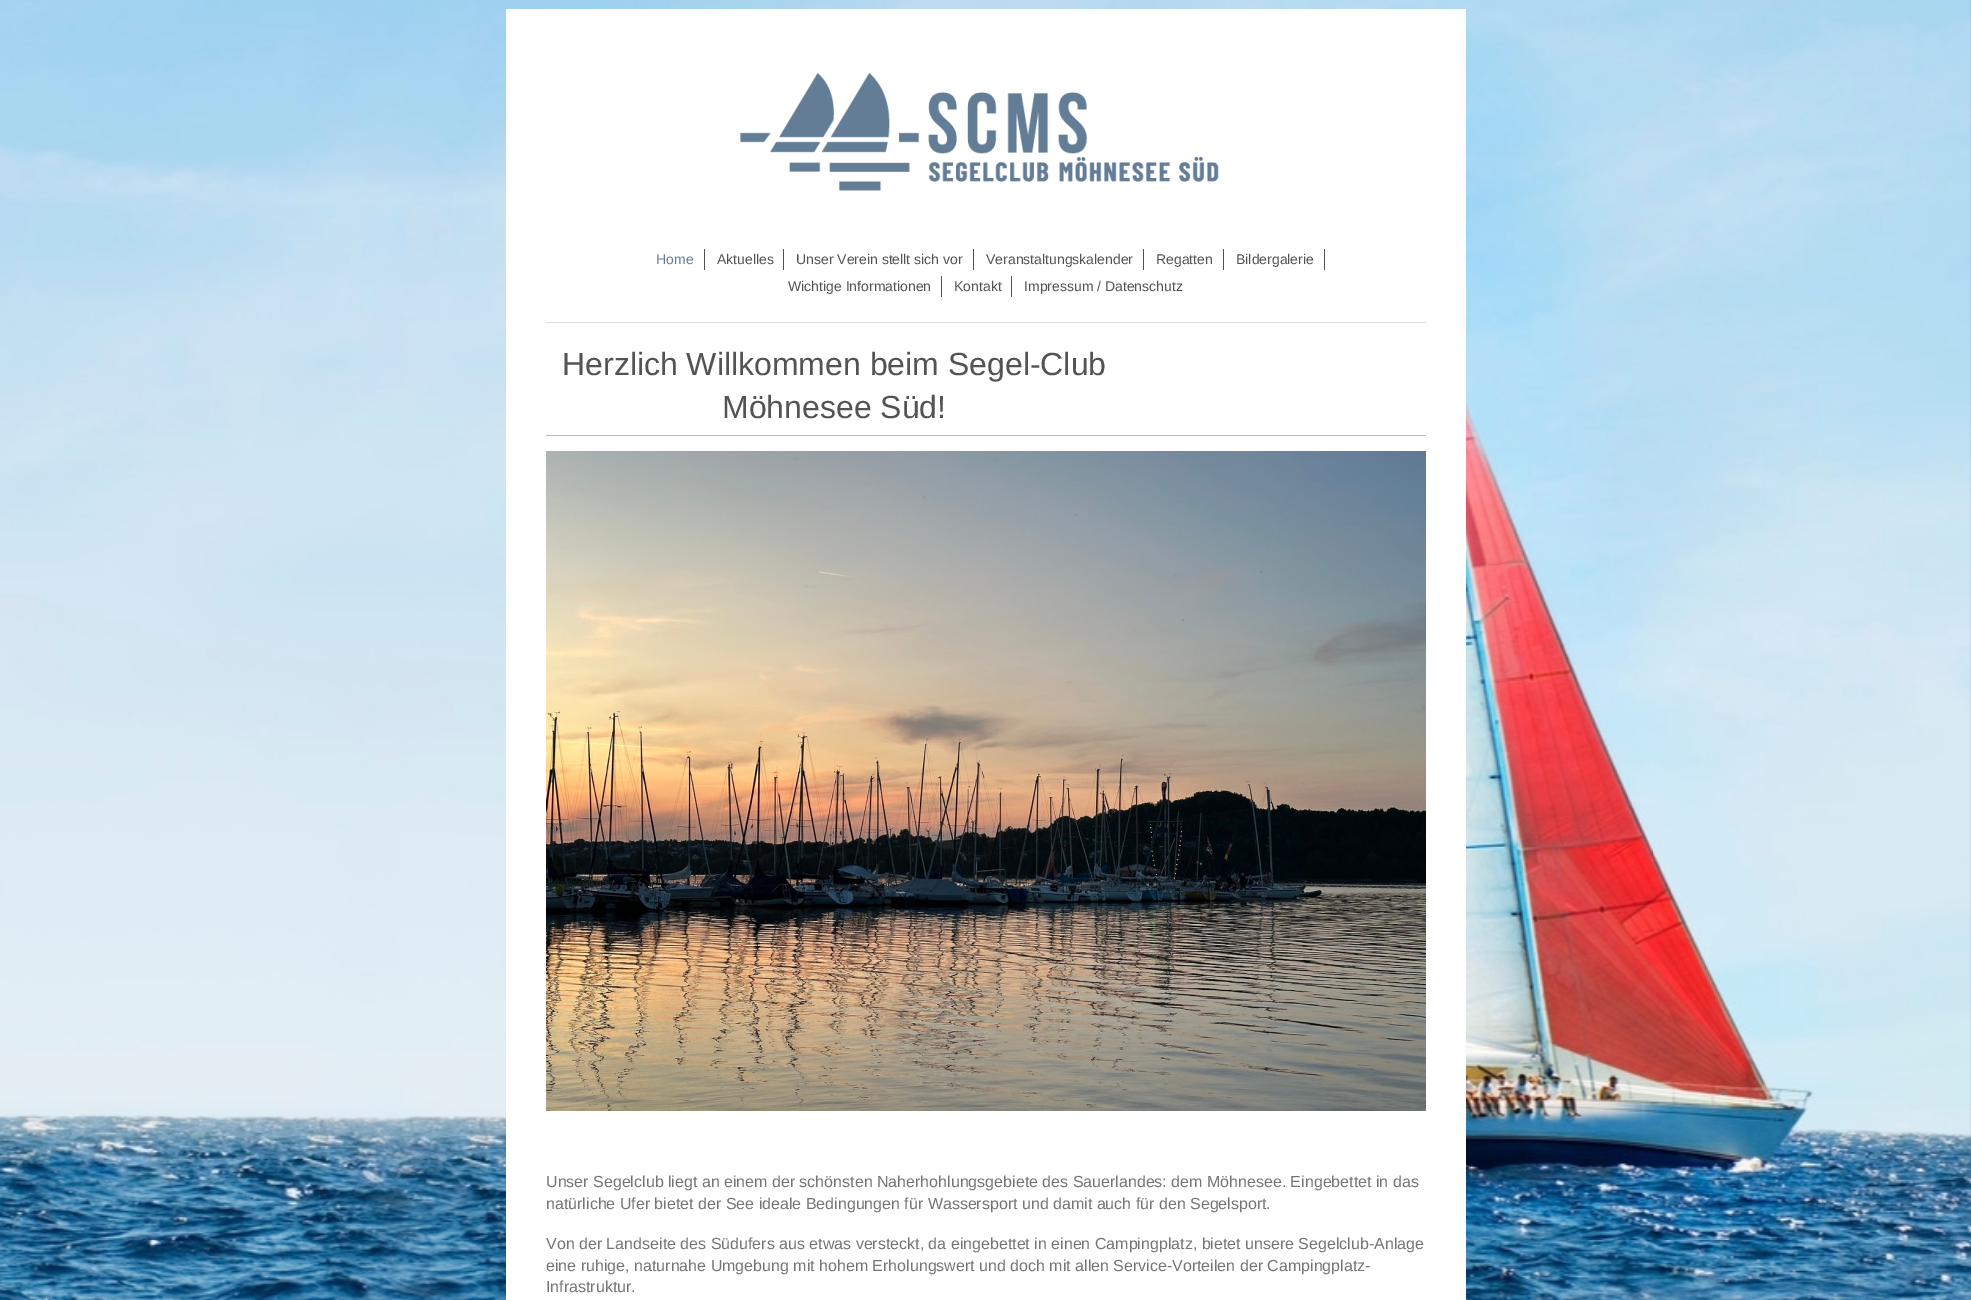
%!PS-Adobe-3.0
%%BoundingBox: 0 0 1971 1300
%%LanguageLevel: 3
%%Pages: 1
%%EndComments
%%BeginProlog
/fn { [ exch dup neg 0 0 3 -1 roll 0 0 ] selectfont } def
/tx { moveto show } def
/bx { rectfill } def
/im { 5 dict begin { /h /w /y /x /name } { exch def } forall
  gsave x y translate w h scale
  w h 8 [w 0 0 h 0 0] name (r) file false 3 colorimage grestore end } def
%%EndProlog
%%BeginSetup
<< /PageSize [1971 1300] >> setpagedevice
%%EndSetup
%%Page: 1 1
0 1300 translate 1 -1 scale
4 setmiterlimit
1 setgray
0 0 1971 1300 bx
(image0.raw) 0 0 1971 1300 im
506 9 960 1291 bx
(image1.raw) 740 72 479 119 im
0.867 setgray
546 322 880 1 bx
0.325 setgray
704 249 1 21 bx
/LiberationSans-Regular 14 fn
0.392 0.49 0.588 setrgbcolor
(Home) 656 264 tx
0.325 setgray
783 249 1 21 bx
(Aktuelles) 717 264 tx
973 249 1 21 bx
(Unser Verein stellt sich vor) 796 264 tx
1143 249 1 21 bx
(Veranstaltungskalender) 986 264 tx
1223 249 1 21 bx
(Regatten) 1156 264 tx
1324 249 1 21 bx
(Bildergalerie) 1236 264 tx
941 276 1 21 bx
(Wichtige Informationen) 788 291 tx
1011 276 1 21 bx
(Kontakt) 954 291 tx
(Impressum / Datenschutz) 1024 291 tx
/LiberationSans-Regular 32 fn
(Herzlich Willkommen beim Segel-Club) 562 375 tx
(Möhnesee Süd!) 722 418 tx
0.729 setgray
546 435 880 1 bx
(image2.raw) 546 451 880 660 im
/LiberationSans-Regular 16 fn
0.459 setgray
(Unser Segelclub liegt an einem der schönsten Naherhohlungsgebiete des Sauerlandes: dem Möhnesee. Eingebettet in das) 546 1187 tx
(natürliche Ufer bietet der See ideale Bedingungen für Wassersport und damit auch für den Segelsport.) 546 1209 tx
(Von der Landseite des Südufers aus etwas versteckt, da eingebettet in einen Campingplatz, bietet unsere Segelclub-Anlage) 546 1249 tx
(eine ruhige, naturnahe Umgebung mit hohem Erholungswert und doch mit allen Service-Vorteilen der Campingplatz-) 546 1271 tx
(Infrastruktur.) 546 1292 tx
showpage
%%EOF
